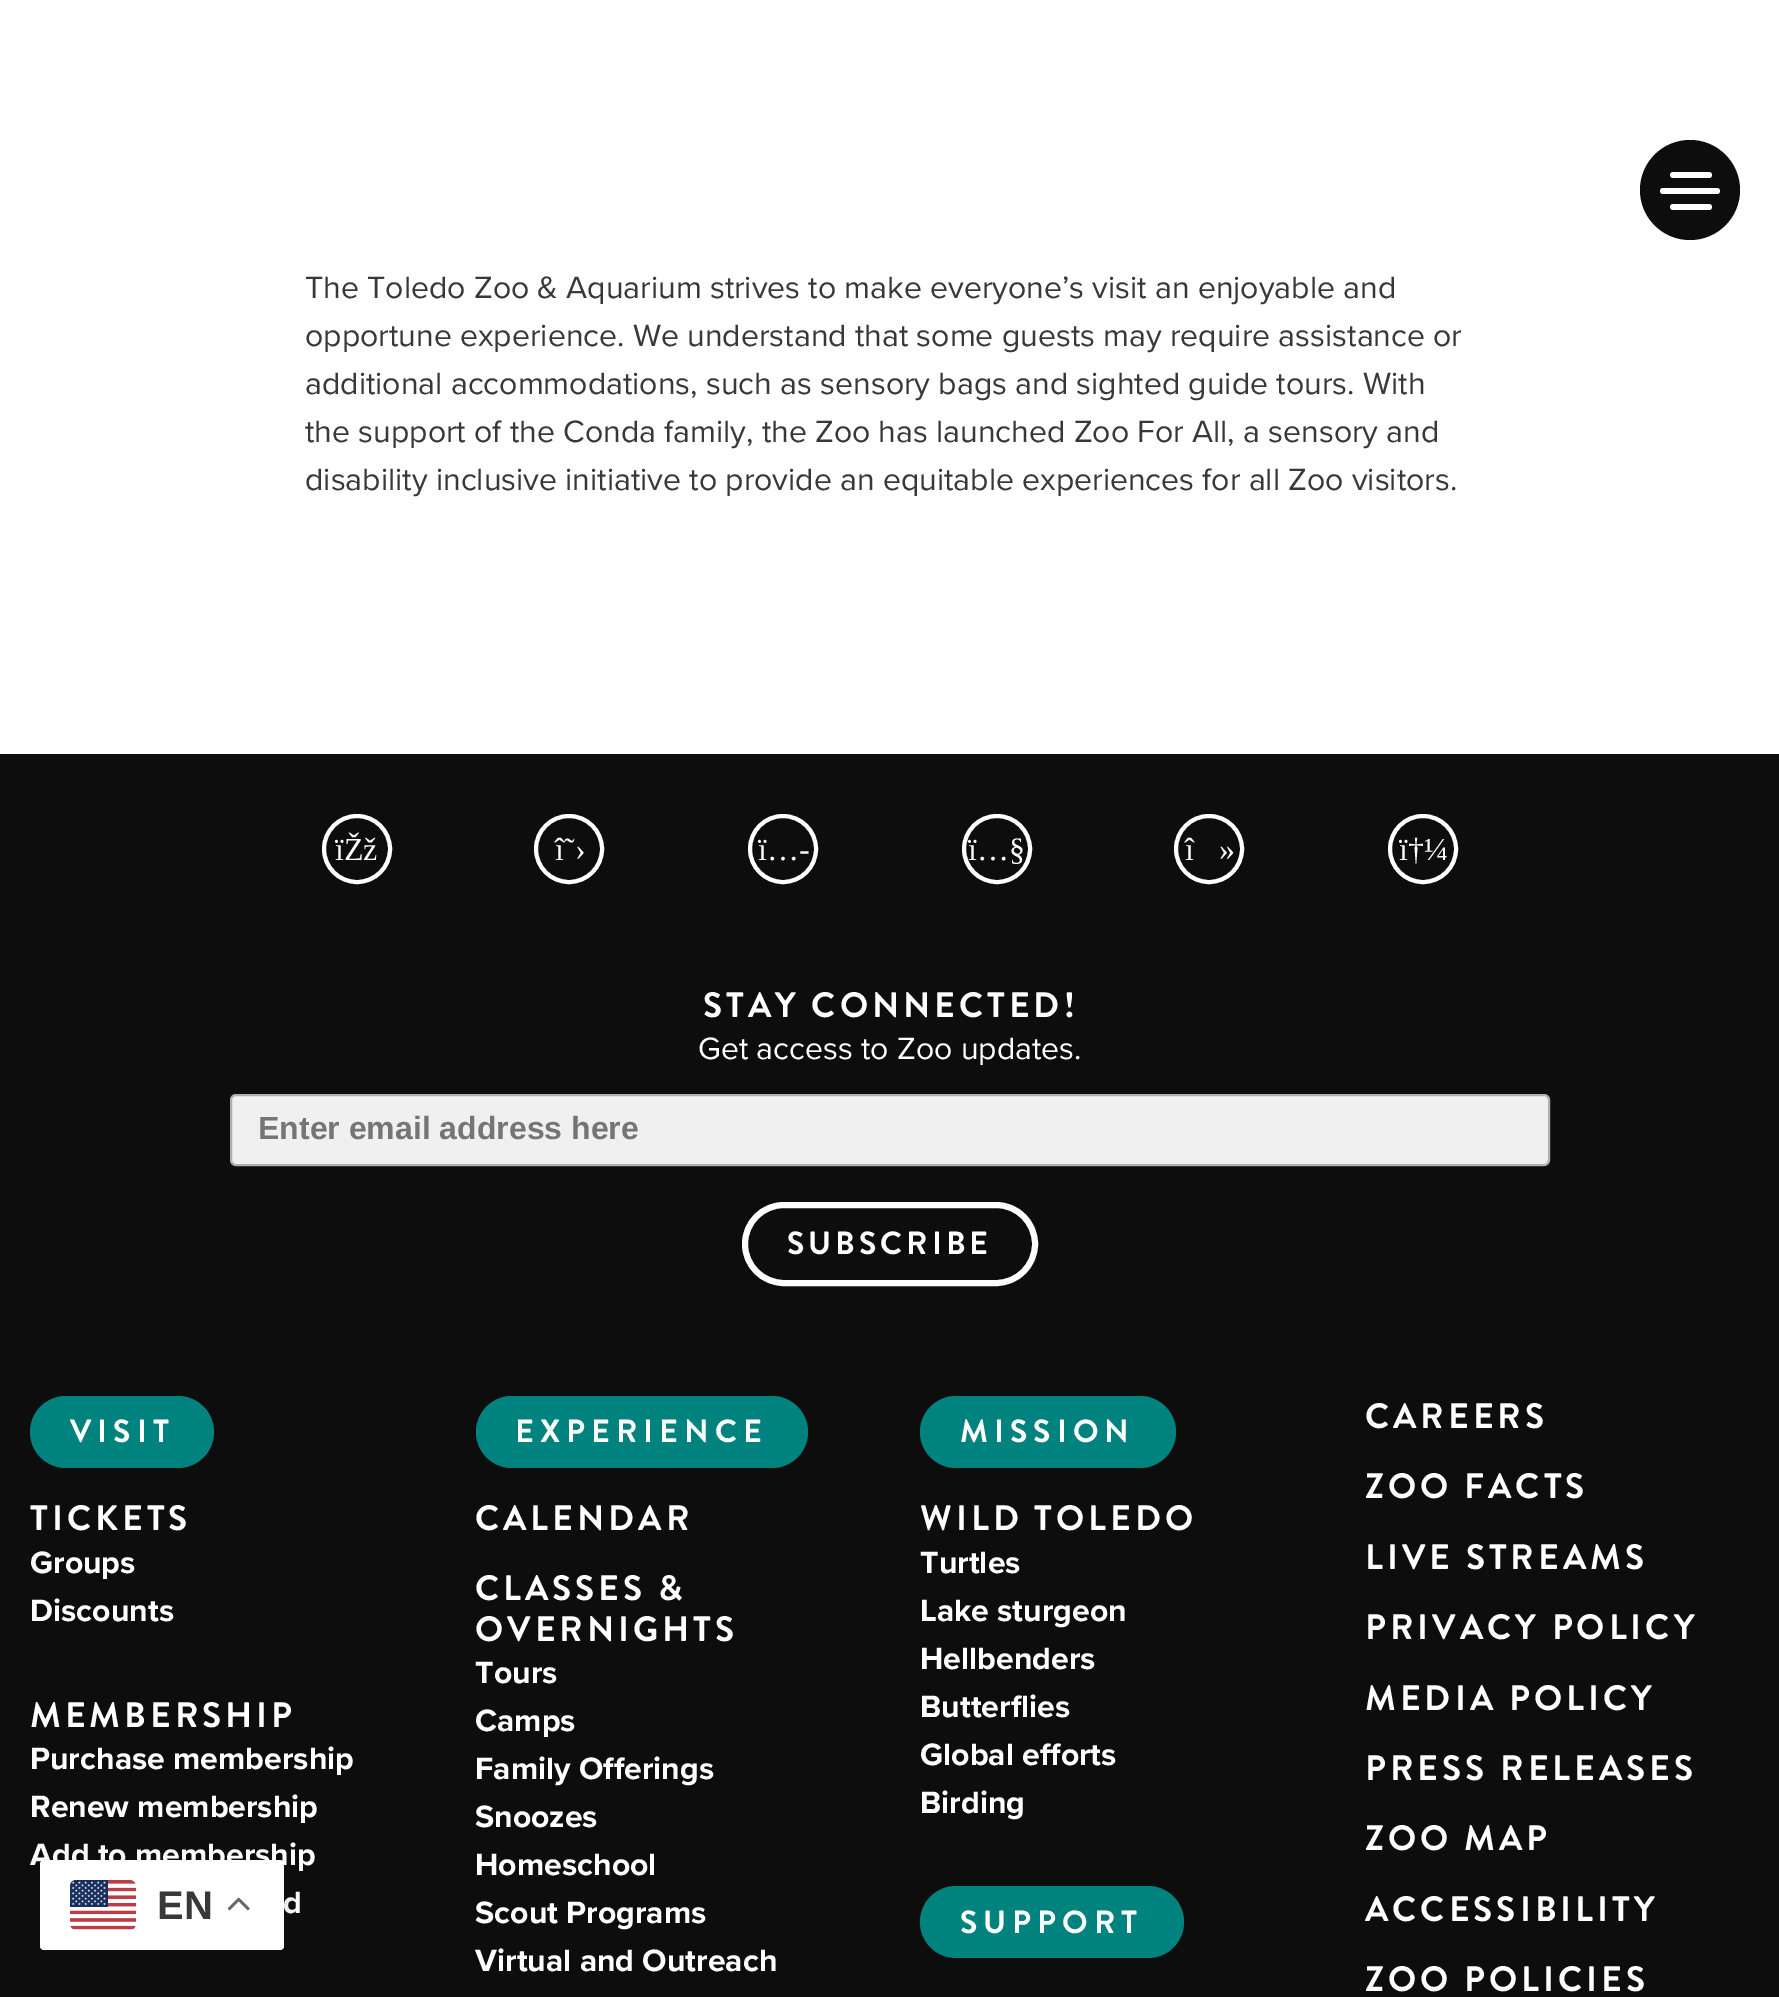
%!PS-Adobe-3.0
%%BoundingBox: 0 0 1779 1997
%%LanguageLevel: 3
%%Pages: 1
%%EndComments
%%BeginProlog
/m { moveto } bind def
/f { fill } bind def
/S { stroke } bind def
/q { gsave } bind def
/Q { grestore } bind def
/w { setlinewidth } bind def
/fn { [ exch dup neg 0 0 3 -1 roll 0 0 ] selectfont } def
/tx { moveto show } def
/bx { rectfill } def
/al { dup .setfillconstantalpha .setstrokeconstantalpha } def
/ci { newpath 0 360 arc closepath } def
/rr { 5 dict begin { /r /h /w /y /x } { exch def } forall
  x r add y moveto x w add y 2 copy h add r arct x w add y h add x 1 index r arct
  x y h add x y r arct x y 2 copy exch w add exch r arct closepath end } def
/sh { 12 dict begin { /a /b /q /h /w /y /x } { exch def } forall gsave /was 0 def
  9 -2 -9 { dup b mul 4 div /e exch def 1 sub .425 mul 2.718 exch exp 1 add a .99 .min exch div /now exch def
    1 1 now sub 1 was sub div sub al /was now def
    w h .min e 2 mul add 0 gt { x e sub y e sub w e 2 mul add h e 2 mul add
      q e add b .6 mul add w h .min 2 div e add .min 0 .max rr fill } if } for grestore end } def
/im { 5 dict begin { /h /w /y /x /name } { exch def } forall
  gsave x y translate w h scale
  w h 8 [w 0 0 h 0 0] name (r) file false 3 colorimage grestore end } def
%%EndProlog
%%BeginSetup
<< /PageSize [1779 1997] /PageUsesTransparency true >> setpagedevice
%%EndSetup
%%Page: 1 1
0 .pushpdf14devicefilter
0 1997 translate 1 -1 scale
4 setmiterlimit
1 setgray
0 0 1779 1997 bx
0.051 setgray
1690 190 50 ci f
1 setgray
1670 172 42 6 3 rr f
1660 188 60 6 3 rr f
1670 204 42 6 3 rr f
/ProximaNova-Regular 32 fn
0.22 setgray
(The Toledo Zoo & Aquarium strives to make everyone’s visit an enjoyable and) 305 298 tx
(opportune experience. We understand that some guests may require assistance or) 305 346 tx
(additional accommodations, such as sensory bags and sighted guide tours. With) 305 394 tx
(the support of the Conda family, the Zoo has launched Zoo For All, a sensory and) 305 442 tx
(disability inclusive initiative to provide an equitable experiences for all Zoo visitors.) 305 490 tx
0.051 setgray
0 754 1779 1243 bx
1 setgray
4 w
357 849 33 ci S
/LiberationSerif-Regular 32 fn
(ïŽž) 335 860 tx
569 849 33 ci S
(î˜›) 555 860 tx
783 849 33 ci S
(ï…-) 758 860 tx
997 849 33 ci S
(ï…§) 968 860 tx
1209 849 33 ci S
(î) 1185 860 tx
(») 1219 860 tx
1423 849 33 ci S
(ï†¼) 1399 860 tx
/BrandonGrotesque-Bold 35.25 fn
703 1017 m 4 0 (STAY CONNECTED!) ashow
/ProximaNova-Regular 32 fn
(Get access to Zoo updates.) 698 1059 tx
0.941 setgray
231 1095 1318 70 5 rr q f Q
0.671 0.69 0.698 setrgbcolor
2 w
S
/LiberationSans-Bold 32 fn
0.459 setgray
(Enter email address here) 258 1139 tx
1 setgray
6 w
745 1205 290 78 39 rr S
/BrandonGrotesque-Bold 32 fn
787 1254 m 4 0 (SUBSCRIBE) ashow
0 0.514 0.498 setrgbcolor
30 1396 184 72 36 rr f
1 setgray
70 1442 m 6 0 (VISIT) ashow
/BrandonGrotesque-Bold 35.25 fn
30 1530 m 4 0 (TICKETS) ashow
/ProximaNova-Bold 32 fn
(Groups) 30 1573 tx
(Discounts) 30 1621 tx
/BrandonGrotesque-Bold 35.25 fn
30 1727 m 4 0 (MEMBERSHIP) ashow
/ProximaNova-Bold 32 fn
(Purchase membership) 30 1769 tx
(Renew membership) 30 1817 tx
(Add to membership) 30 1865 tx
(d) 283 1913 tx
0 0.514 0.498 setrgbcolor
476 1396 332 72 36 rr f
/BrandonGrotesque-Bold 32 fn
1 setgray
515 1442 m 6 0 (EXPERIENCE) ashow
/BrandonGrotesque-Bold 35.25 fn
475 1530 m 4 0 (CALENDAR) ashow
475 1600 m 4 0 (CLASSES &) ashow
475 1641 m 4 0 (OVERNIGHTS) ashow
/ProximaNova-Bold 32 fn
(Tours) 475 1683 tx
(Camps) 475 1731 tx
(Family Offerings) 475 1779 tx
(Snoozes) 475 1827 tx
(Homeschool) 475 1875 tx
(Scout Programs) 475 1923 tx
(Virtual and Outreach) 475 1971 tx
0 0.514 0.498 setrgbcolor
920 1396 256 72 36 rr f
/BrandonGrotesque-Bold 32 fn
1 setgray
960 1442 m 6 0 (MISSION) ashow
/BrandonGrotesque-Bold 35.25 fn
920 1530 m 4 0 (WILD TOLEDO) ashow
/ProximaNova-Bold 32 fn
(Turtles) 920 1573 tx
(Lake sturgeon) 920 1621 tx
(Hellbenders) 920 1669 tx
(Butterflies) 920 1717 tx
(Global efforts) 920 1765 tx
(Birding) 920 1813 tx
0 0.514 0.498 setrgbcolor
920 1886 264 72 36 rr f
/BrandonGrotesque-Bold 32 fn
1 setgray
960 1933 m 6 0 (SUPPORT) ashow
/BrandonGrotesque-Bold 35.25 fn
1365 1428 m 4 0 (CAREERS) ashow
1365 1498 m 4 0 (ZOO FACTS) ashow
1365 1569 m 4 0 (LIVE STREAMS) ashow
1365 1639 m 4 0 (PRIVACY POLICY) ashow
1365 1710 m 4 0 (MEDIA POLICY) ashow
1365 1780 m 4 0 (PRESS RELEASES) ashow
1365 1850 m 4 0 (ZOO MAP) ashow
1365 1921 m 4 0 (ACCESSIBILITY) ashow
1365 1991 m 4 0 (ZOO POLICIES) ashow
0 setgray
40 1870 244 90 4 15 0.15 sh
1 setgray
40 1860 244 90 4 rr f
(image0.raw) 70 1880 66 50 im
/LiberationSans-Bold 40 fn
0.22 setgray
(EN) 157 1919 tx
(image1.raw) 228 1897 22 14 im
.poppdf14devicefilter showpage
%%EOF
